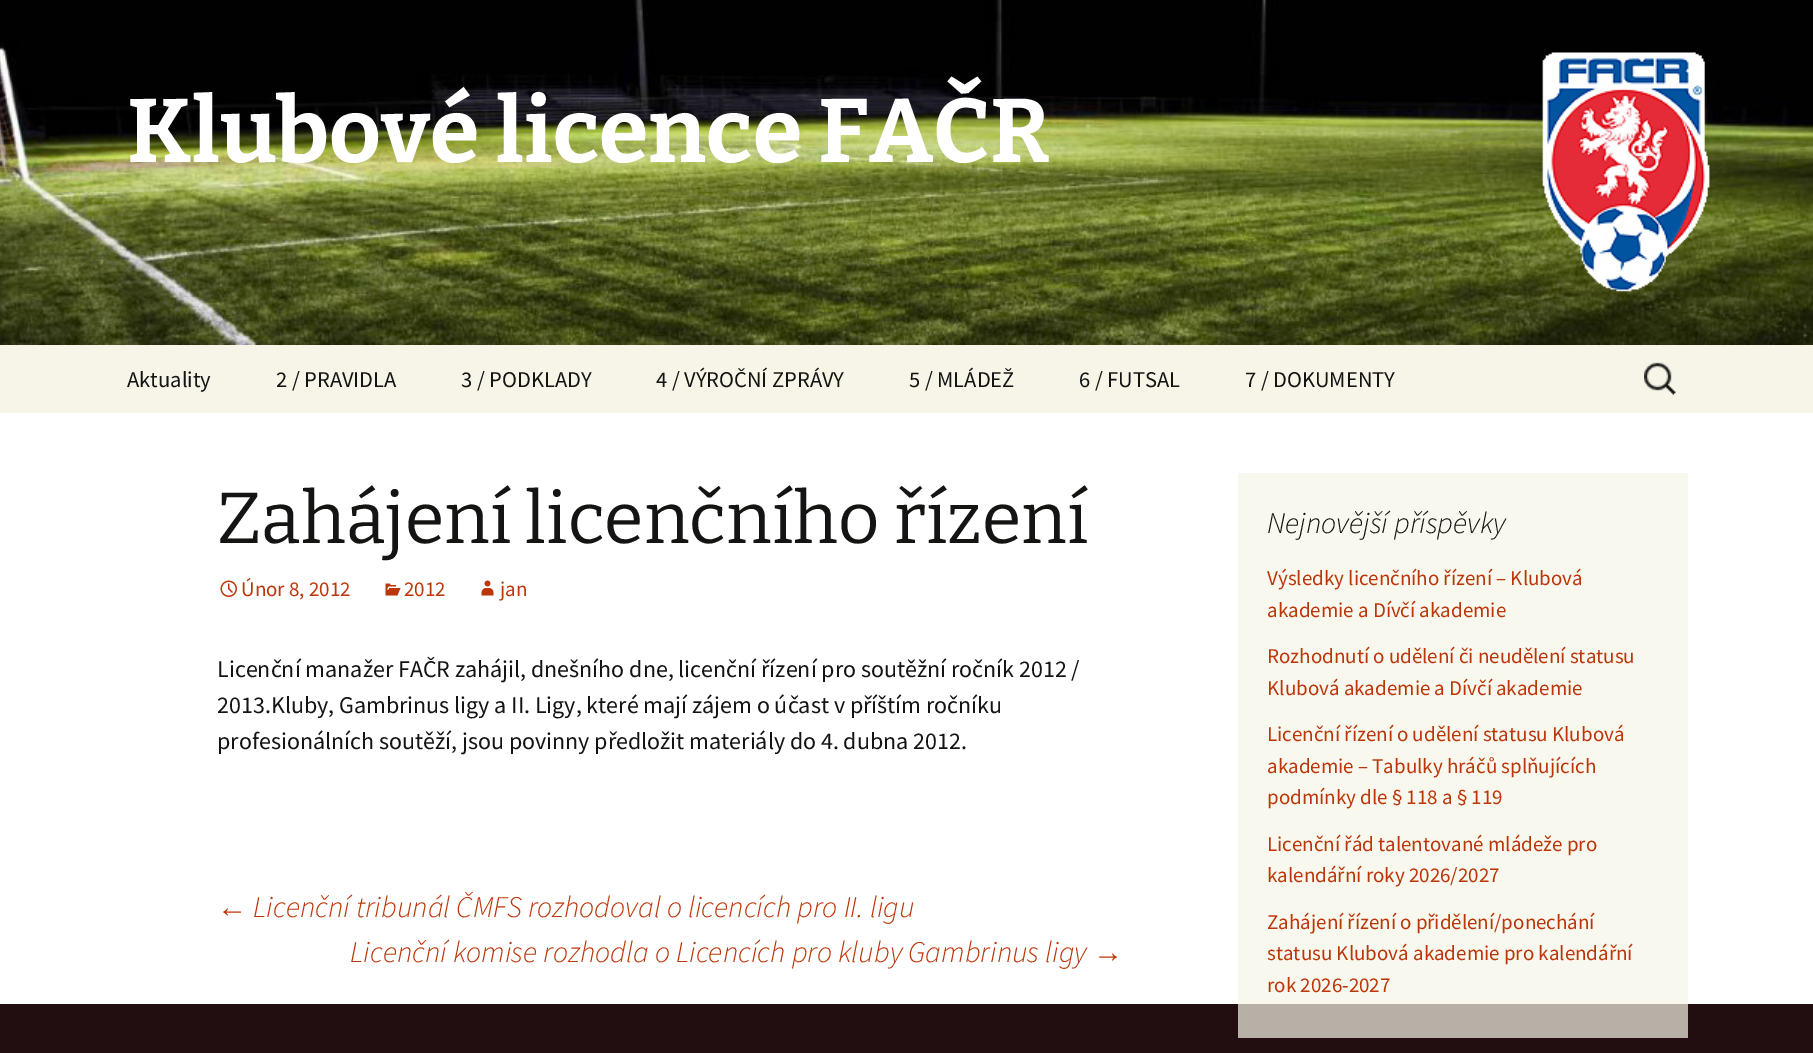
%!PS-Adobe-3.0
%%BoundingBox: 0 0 1813 1053
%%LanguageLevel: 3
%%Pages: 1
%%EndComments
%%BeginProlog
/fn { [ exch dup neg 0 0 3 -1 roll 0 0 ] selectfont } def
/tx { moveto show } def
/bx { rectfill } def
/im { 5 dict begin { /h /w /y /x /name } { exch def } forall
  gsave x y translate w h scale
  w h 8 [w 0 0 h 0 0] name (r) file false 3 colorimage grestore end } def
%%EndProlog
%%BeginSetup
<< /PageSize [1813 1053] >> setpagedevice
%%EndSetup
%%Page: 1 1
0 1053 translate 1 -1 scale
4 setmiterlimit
1 setgray
0 0 1813 1053 bx
0.976 0.973 0.933 setrgbcolor
1238 473 450 531 bx
(image0.raw) 0 0 1813 345 im
/Bitter-Bold 90 fn
1 setgray
(Klubové licence FAČR) 127 162 tx
0.969 0.961 0.906 setrgbcolor
0 345 1813 68 bx
/SourceSansPro-Regular 22.5 fn
0.078 0.078 0.071 setrgbcolor
(Aktuality) 127 387 tx
(2 / PRAVIDLA) 276 387 tx
(3 / PODKLADY) 461 387 tx
(4 / VÝROČNÍ ZPRÁVY) 656 387 tx
(5 / MLÁDEŽ) 909 387 tx
(6 / FUTSAL) 1079 387 tx
(7 / DOKUMENTY) 1245 387 tx
(image1.raw) 1644 362 32 33 im
/Bitter-Regular 72 fn
(Zahájení licenčního řízení) 217 543 tx
(image2.raw) 220 580 17 17 im
/SourceSansPro-Regular 21 fn
0.737 0.212 0.039 setrgbcolor
(Únor 8, 2012) 241 596 tx
(image3.raw) 385 583 16 13 im
(2012) 404 596 tx
(image4.raw) 481 580 13 16 im
(jan) 500 596 tx
/SourceSansPro-Regular 24 fn
0.078 0.078 0.071 setrgbcolor
(Licenční manažer FAČR zahájil, dnešního dne, licenční řízení pro soutěžní ročník 2012 /) 217 677 tx
(2013.Kluby, Gambrinus ligy a II. Ligy, které mají zájem o účast v příštím ročníku) 217 713 tx
(profesionálních soutěží, jsou povinny předložit materiály do 4. dubna 2012.) 217 749 tx
/LiberationSans-Italic 30 fn
0.737 0.212 0.039 setrgbcolor
(←) 217 917 tx
/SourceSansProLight-LightItalic 30 fn
(Licenční tribunál ČMFS rozhodoval o licencích pro II. ligu) 253 917 tx
(Licenční komise rozhodla o Licencích pro kluby Gambrinus ligy) 350 962 tx
/LiberationSans-Italic 30 fn
(→) 1093 962 tx
/SourceSansProLight-LightItalic 30 fn
0.078 0.078 0.071 setrgbcolor
(Nejnovější příspěvky) 1267 533 tx
/SourceSansPro-Regular 21 fn
0.737 0.212 0.039 setrgbcolor
(Výsledky licenčního řízení – Klubová) 1267 585 tx
(akademie a Dívčí akademie) 1267 617 tx
(Rozhodnutí o udělení či neudělení statusu) 1267 663 tx
(Klubová akademie a Dívčí akademie) 1267 695 tx
(Licenční řízení o udělení statusu Klubová) 1267 741 tx
(akademie – Tabulky hráčů splňujících) 1267 773 tx
(podmínky dle § 118 a § 119) 1267 804 tx
(Licenční řád talentované mládeže pro) 1267 851 tx
(kalendářní roky 2026/2027) 1267 882 tx
(Zahájení řízení o přidělení/ponechání) 1267 929 tx
(statusu Klubová akademie pro kalendářní) 1267 960 tx
(rok 2026-2027) 1267 992 tx
0.133 0.055 0.063 setrgbcolor
0 1004 1813 49 bx
0.718 0.69 0.655 setrgbcolor
1238 1004 450 34 bx
showpage
%%EOF
